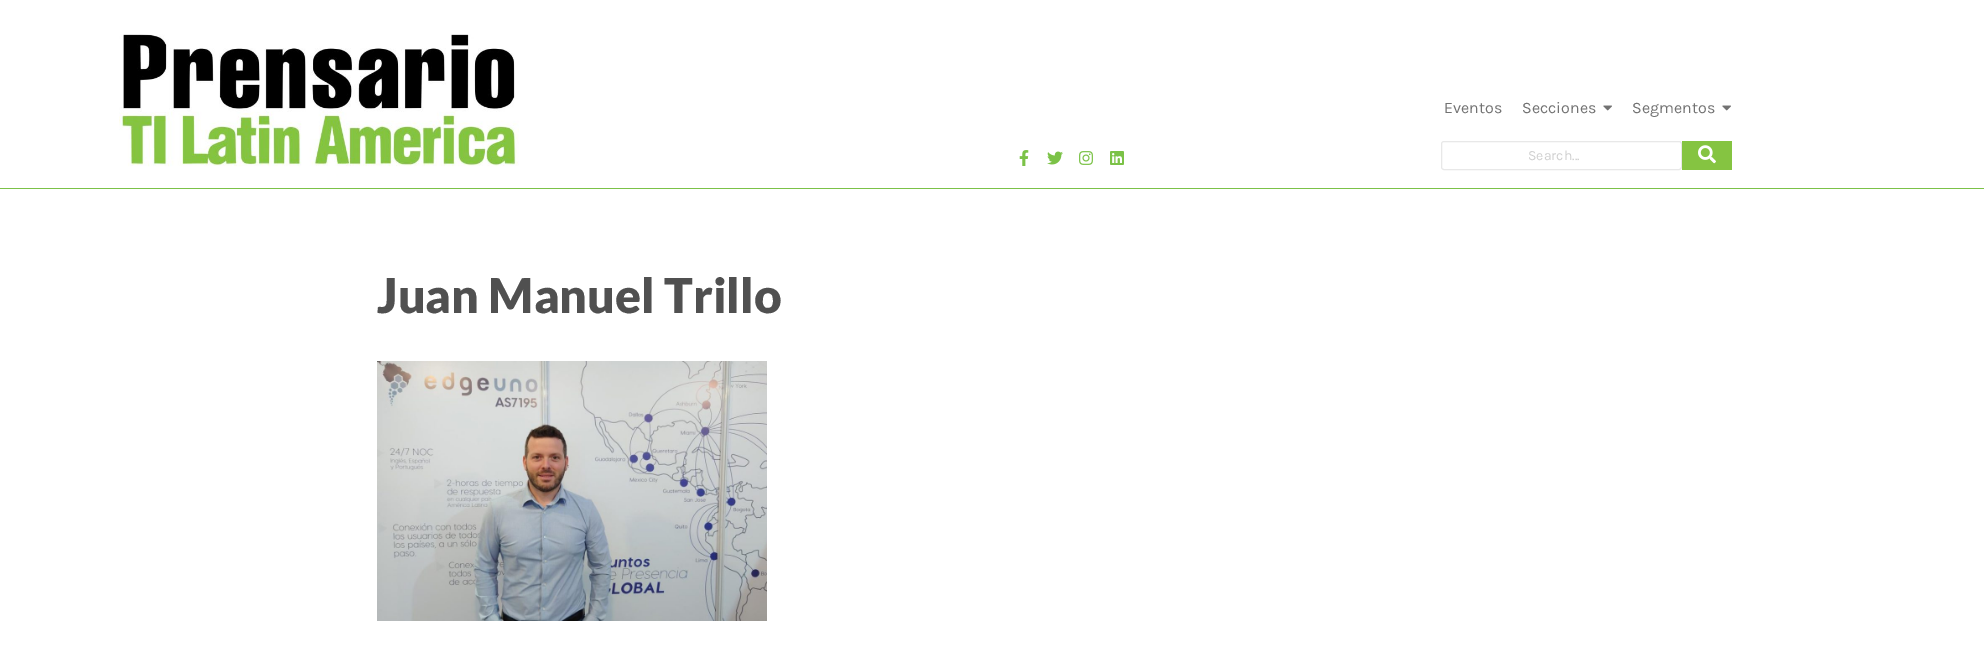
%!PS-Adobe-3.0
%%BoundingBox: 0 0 1984 658
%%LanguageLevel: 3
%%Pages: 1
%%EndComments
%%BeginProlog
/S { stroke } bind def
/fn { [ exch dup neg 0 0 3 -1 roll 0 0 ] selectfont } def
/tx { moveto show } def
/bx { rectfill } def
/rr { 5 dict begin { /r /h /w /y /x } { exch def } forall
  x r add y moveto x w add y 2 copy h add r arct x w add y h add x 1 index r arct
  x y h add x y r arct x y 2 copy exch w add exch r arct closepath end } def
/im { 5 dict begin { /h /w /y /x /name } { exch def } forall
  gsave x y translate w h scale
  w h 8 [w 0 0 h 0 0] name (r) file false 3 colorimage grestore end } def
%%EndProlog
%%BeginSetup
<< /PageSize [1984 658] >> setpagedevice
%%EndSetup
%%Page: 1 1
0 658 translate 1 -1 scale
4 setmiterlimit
1 setgray
0 0 1984 658 bx
0.482 0.761 0.278 setrgbcolor
0 188 1984 1 bx
(image0.raw) 119 34 400 133 im
(image1.raw) 1019 150 10 16 im
(image2.raw) 1047 151 16 14 im
(image3.raw) 1079 151 14 14 im
(image4.raw) 1110 151 14 14 im
/Karla-Regular 16 fn
0.447 setgray
(Eventos) 1444 113 tx
(Secciones) 1522 113 tx
(image5.raw) 1603 105 9 6 im
(Segmentos) 1632 113 tx
(image5.raw) 1722 105 9 6 im
0.91 setgray
1441.5 141.5 240 28 2.5 rr S
/Karla-Regular 14 fn
0.812 setgray
(Search...) 1528 160 tx
0.522 0.769 0.255 setrgbcolor
1682 141 50 29 bx
(image6.raw) 1698 145 18 19 im
/Lato-Black 48 fn
0.314 setgray
(Juan Manuel Trillo) 377 313 tx
(image7.raw) 377 361 390 260 im
showpage
%%EOF
